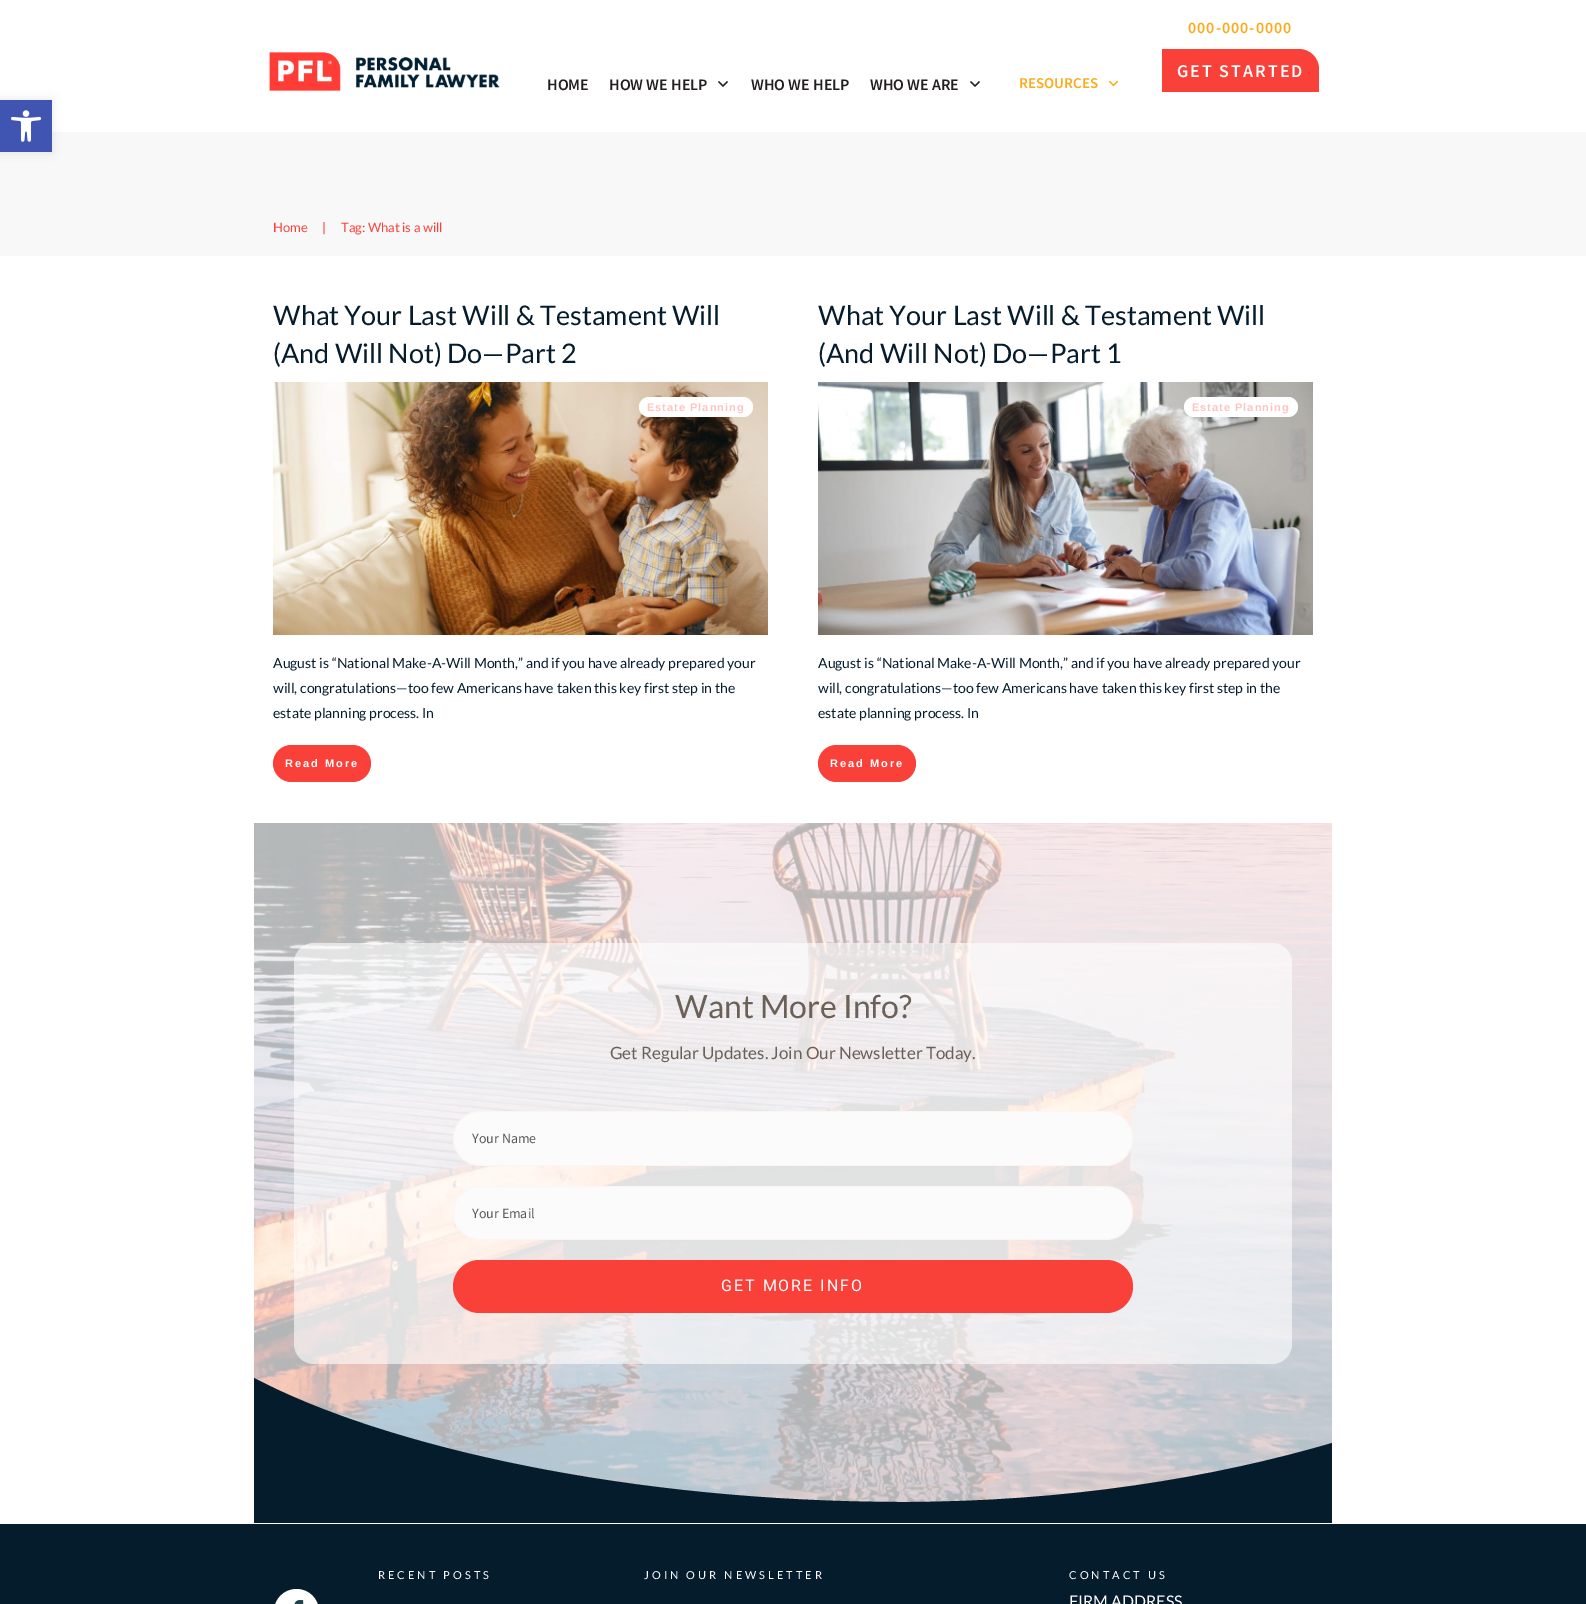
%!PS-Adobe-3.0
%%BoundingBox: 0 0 1586 1604
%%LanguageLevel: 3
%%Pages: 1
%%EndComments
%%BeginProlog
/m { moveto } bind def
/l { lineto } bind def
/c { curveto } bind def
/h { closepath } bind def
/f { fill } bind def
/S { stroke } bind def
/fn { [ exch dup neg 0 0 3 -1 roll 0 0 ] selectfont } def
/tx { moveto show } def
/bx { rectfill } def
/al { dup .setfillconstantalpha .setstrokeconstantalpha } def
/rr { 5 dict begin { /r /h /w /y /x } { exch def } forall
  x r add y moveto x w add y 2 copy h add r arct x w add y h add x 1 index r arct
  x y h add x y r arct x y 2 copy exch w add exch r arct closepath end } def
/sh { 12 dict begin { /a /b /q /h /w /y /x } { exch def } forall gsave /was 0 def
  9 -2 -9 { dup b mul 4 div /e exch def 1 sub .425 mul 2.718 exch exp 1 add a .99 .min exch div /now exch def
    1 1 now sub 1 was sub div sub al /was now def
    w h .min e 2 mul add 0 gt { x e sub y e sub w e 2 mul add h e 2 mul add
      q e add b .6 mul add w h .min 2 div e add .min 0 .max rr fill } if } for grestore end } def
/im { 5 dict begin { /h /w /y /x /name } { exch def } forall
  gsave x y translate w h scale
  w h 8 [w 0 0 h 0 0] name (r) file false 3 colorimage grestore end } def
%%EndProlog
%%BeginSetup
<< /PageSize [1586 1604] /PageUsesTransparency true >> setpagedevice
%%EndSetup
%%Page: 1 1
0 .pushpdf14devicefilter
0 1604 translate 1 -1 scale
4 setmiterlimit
1 setgray
0 0 1586 1604 bx
0.973 setgray
0 132 1586 124 bx
0 setgray
0 100 52 52 0 5 0.1 sh
0.251 0.329 0.698 setrgbcolor
0 100 52 52 bx
(image0.raw) 11 110 30 32 im
(image1.raw) 269 52 231 40 im
/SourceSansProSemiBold-SemiBold 16 fn
0.137 0.122 0.125 setrgbcolor
(HOME) 547 90 tx
(HOW WE HELP) 609 90 tx
(image2.raw) 718 81 10 6 im
(WHO WE HELP) 751 90 tx
(WHO WE ARE) 870 90 tx
(image2.raw) 970 81 10 6 im
/SourceSansProSemiBold-SemiBold 15 fn
0.984 0.667 0.106 setrgbcolor
(RESOURCES) 1019 88 tx
(image3.raw) 1108 80 11 7 im
/SourceSansProSemiBold-SemiBold 16 fn
1188 33 m 1 0 (000-000-0000) ashow
0.976 0.251 0.224 setrgbcolor
1162 49 m 1299 49 l 1310 49 1319 58 1319 69 c 1319 92 l 1162 92 l h f
/SourceSansProSemiBold-SemiBold 18 fn
1 setgray
1177 77 m 2 0 (GET STARTED) ashow
/Lato-Regular 13 fn
0.976 0.251 0.224 setrgbcolor
(Home) 273 232 tx
(|) 322 232 tx
(Tag: What is a will) 341 232 tx
/Lato-Regular 27 fn
0.02 0.11 0.173 setrgbcolor
(What Your Last Will & Testament Will) 273 325 tx
(\(And Will Not\) Do—Part 2) 273 363 tx
(image4.raw) 273 382 495 253 im
1 setgray
639 397 114 20 10 rr f
/LiberationSans-Bold 11 fn
1 0.769 0.761 setrgbcolor
647 411 m 1 0 (Estate Planning) ashow
/Lato-Regular 14 fn
0.02 0.11 0.173 setrgbcolor
(August is “National Make-A-Will Month,” and if you have already prepared your) 273 668 tx
(will, congratulations—too few Americans have taken this key first step in the) 273 693 tx
(estate planning process. In) 273 718 tx
0.976 0.251 0.224 setrgbcolor
273 745 98 37 18.5 rr f
/LiberationSans-Bold 11 fn
1 setgray
285 767 m 2 0 (Read More) ashow
/Lato-Regular 27 fn
0.02 0.11 0.173 setrgbcolor
(What Your Last Will & Testament Will) 818 325 tx
(\(And Will Not\) Do—Part 1) 818 363 tx
(image5.raw) 818 382 495 253 im
1 setgray
1184 397 114 20 10 rr f
/LiberationSans-Bold 11 fn
1 0.769 0.761 setrgbcolor
1192 411 m 1 0 (Estate Planning) ashow
/Lato-Regular 14 fn
0.02 0.11 0.173 setrgbcolor
(August is “National Make-A-Will Month,” and if you have already prepared your) 818 668 tx
(will, congratulations—too few Americans have taken this key first step in the) 818 693 tx
(estate planning process. In) 818 718 tx
0.976 0.251 0.224 setrgbcolor
818 745 98 37 18.5 rr f
/LiberationSans-Bold 11 fn
1 setgray
830 767 m 2 0 (Read More) ashow
(image6.raw) 254 823 1078 679 im
0.02 0.11 0.173 setrgbcolor
1332 1523 m 1332 1443 l 1213 1478 1065 1502 903 1502 c 631 1502 385 1447 254 1378 c 254 1523 l h f
0.6 al
1 setgray
294 943 998 421 20 rr f
/Lato-Regular 32 fn
1 al
0.416 0.376 0.341 setrgbcolor
(Want More Info?) 675 1018 tx
/Lato-Regular 17 fn
(Get Regular Updates. Join Our Newsletter Today.) 610 1059 tx
0.984 setgray
453 1111 680 55 27.5 rr f
0.08 al
1 0.694 0.6 setrgbcolor
453.5 1111.5 679 54 27 rr S
/SourceSansPro-Regular 14 fn
1 al
0.341 setgray
(Your Name) 472 1143 tx
0.984 setgray
453 1186 680 54 27 rr f
0.08 al
1 0.694 0.6 setrgbcolor
453.5 1186.5 679 53 26.5 rr S
1 al
0.341 setgray
(Your Email) 472 1218 tx
0.976 0.251 0.224 setrgbcolor
453 1260 680 53 26.5 rr f
/Roboto-Regular 16 fn
1 setgray
721 1291 m 2 0 (GET MORE INFO) ashow
0.02 0.11 0.173 setrgbcolor
0 1524 1586 80 bx
1 setgray
274 1589 45 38 22.5 rr f
(image7.raw) 294 1600 10 4 im
/Lato-Regular 11 fn
378 1579 m 3 0 (RECENT POSTS) ashow
644 1579 m 3 0 (JOIN OUR NEWSLETTER) ashow
1069 1579 m 3 0 (CONTACT US) ashow
/Lato-Regular 16 fn
(FIRM ADDRESS) 1069 1607 tx
.poppdf14devicefilter showpage
%%EOF
